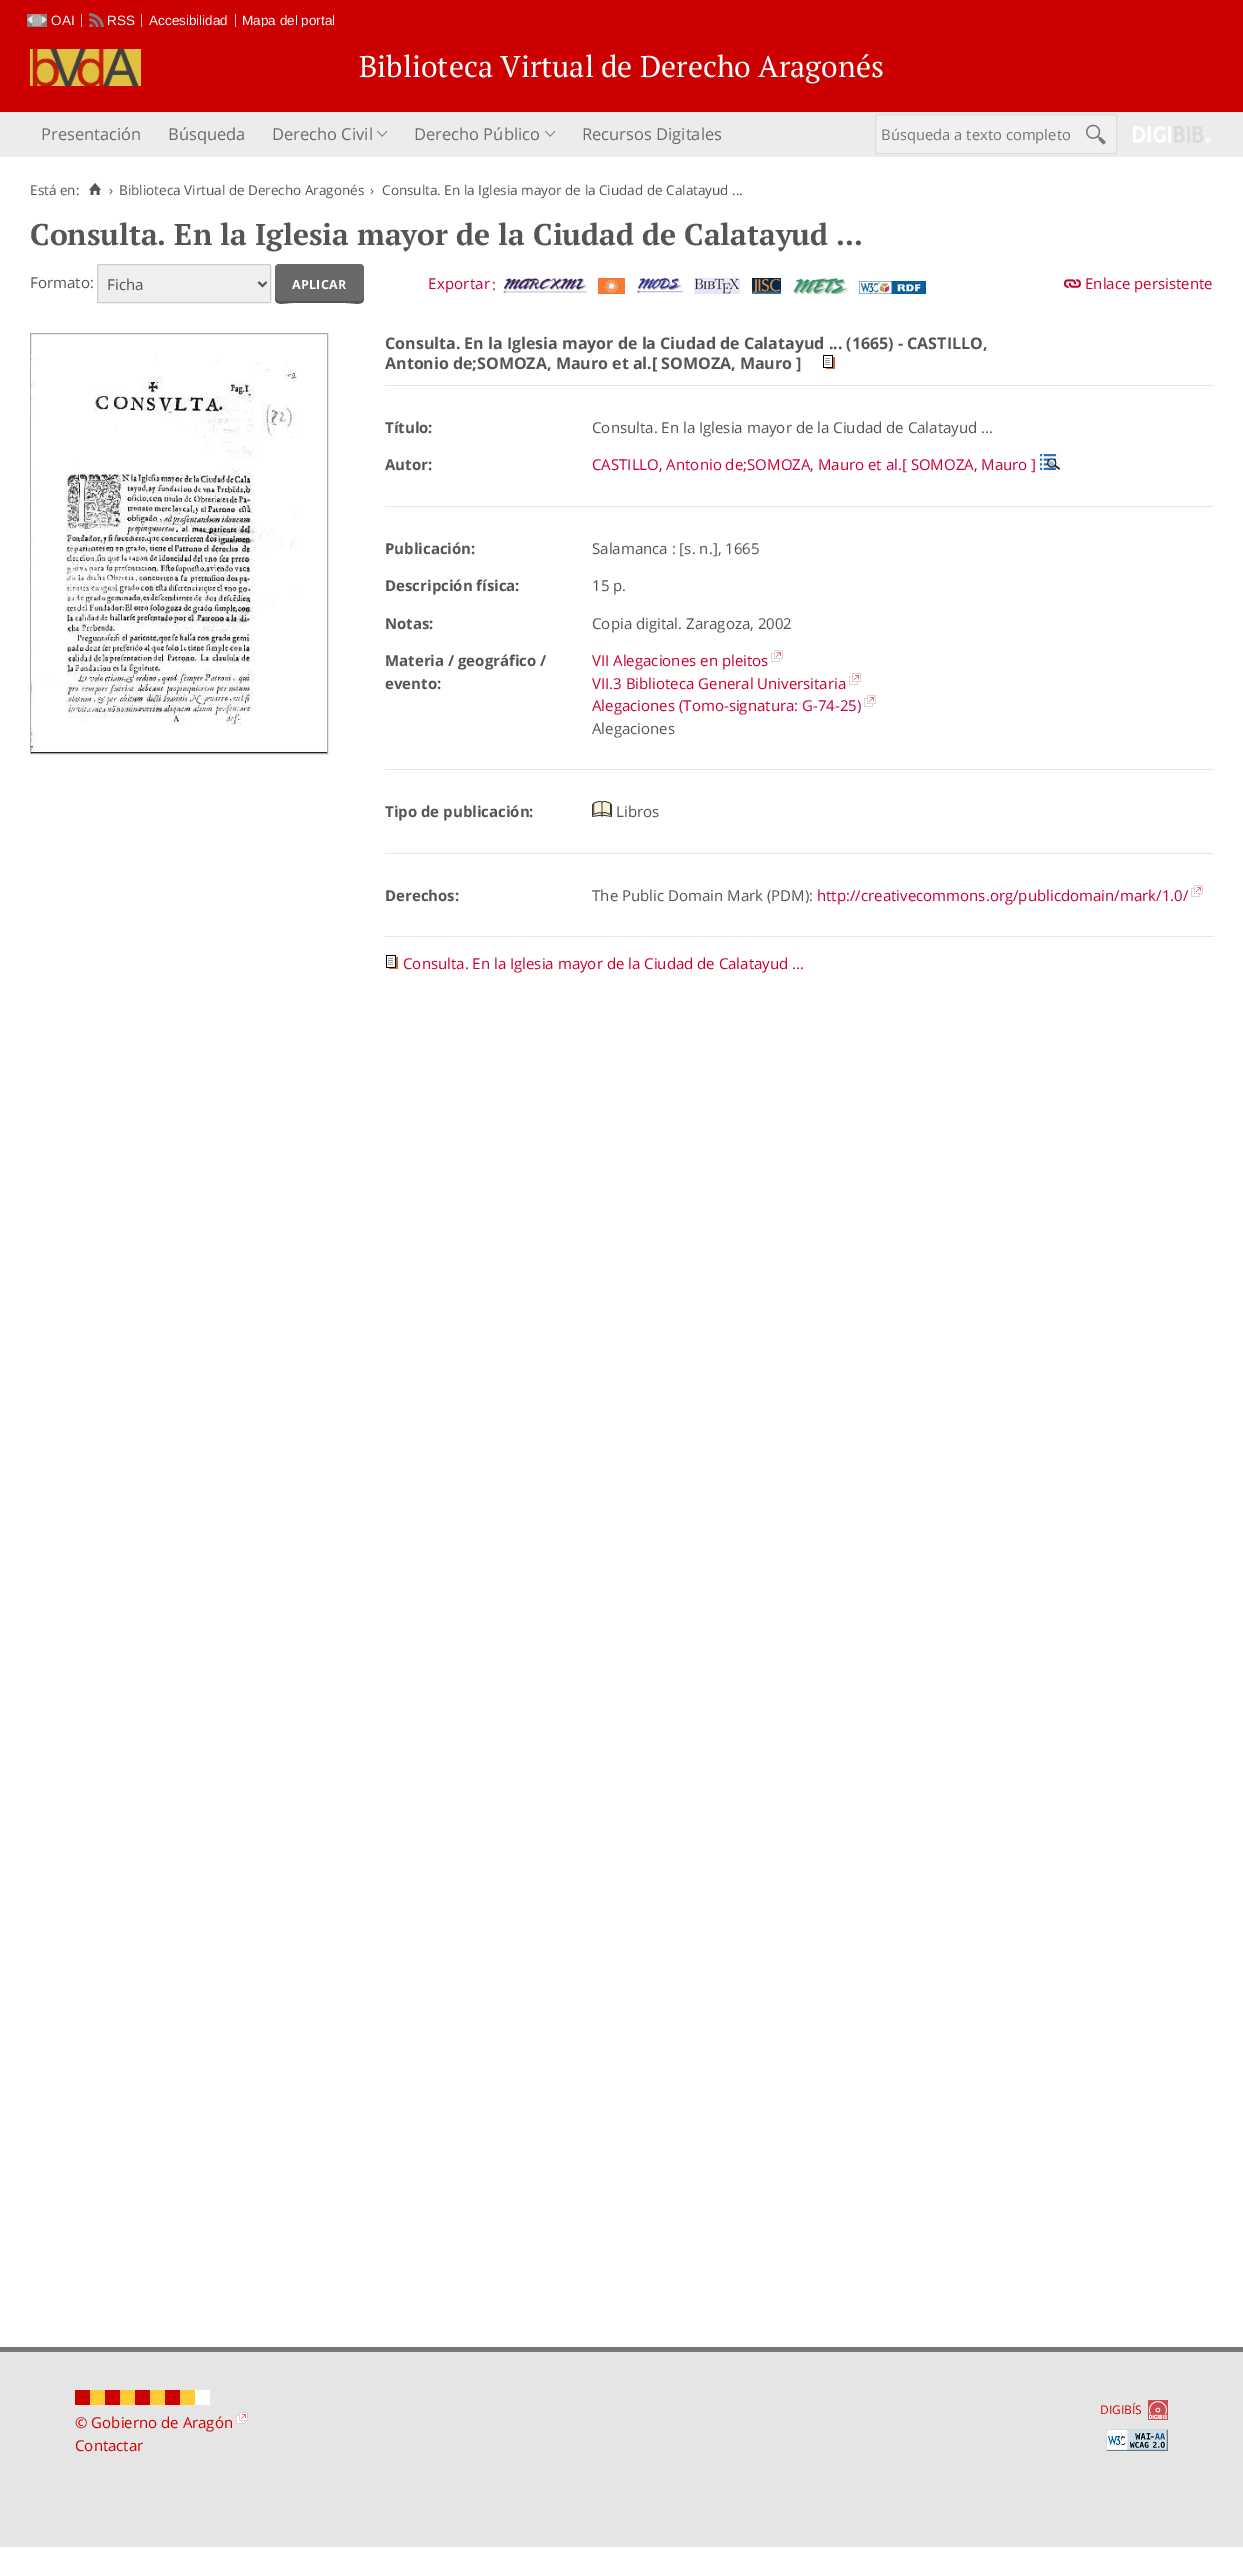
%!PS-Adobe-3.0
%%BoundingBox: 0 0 1243 2574
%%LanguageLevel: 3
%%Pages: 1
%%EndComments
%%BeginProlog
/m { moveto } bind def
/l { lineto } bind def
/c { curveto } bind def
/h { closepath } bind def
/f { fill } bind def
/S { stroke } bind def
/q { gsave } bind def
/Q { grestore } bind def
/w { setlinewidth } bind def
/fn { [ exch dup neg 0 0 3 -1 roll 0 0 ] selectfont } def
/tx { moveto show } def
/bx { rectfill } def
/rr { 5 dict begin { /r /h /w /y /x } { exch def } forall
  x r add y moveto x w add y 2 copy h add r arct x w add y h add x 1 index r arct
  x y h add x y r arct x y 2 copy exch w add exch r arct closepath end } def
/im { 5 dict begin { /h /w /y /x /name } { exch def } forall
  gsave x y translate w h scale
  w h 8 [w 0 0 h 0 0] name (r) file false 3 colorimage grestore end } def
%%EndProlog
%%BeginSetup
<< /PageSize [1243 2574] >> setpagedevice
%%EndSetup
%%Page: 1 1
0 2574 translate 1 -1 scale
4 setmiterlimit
1 setgray
0 0 1243 2574 bx
0.8 0 0 setrgbcolor
0 0 1243 27 bx
(image0.raw) 27 14 20 13 im
/LiberationSans-Regular 13.5 fn
1 setgray
(OAI) 51 25 tx
0.8 setgray
81 14 1 13 bx
(image1.raw) 89 13 15 14 im
1 setgray
(RSS) 107 25 tx
0.8 setgray
141 14 1 13 bx
1 setgray
(Accesibilidad) 149 25 tx
0.8 setgray
235 14 1 13 bx
1 setgray
(Mapa del portal) 242 25 tx
0.8 0 0 setrgbcolor
0 27 1243 85 bx
(image2.raw) 30 49 111 37 im
/PTSerif-Regular 30 fn
1 setgray
(Biblioteca Virtual de Derecho Aragonés) 359 77 tx
0.925 setgray
0 112 1243 45 bx
/OpenSans-Regular 16.5 fn
0.42 setgray
(Presentación) 41 140 tx
(Búsqueda) 168 140 tx
(Derecho Civil) 272 140 tx
(image3.raw) 377 130 11 7 im
(Derecho Público) 414 140 tx
(image3.raw) 545 130 11 7 im
(Recursos Digitales) 582 140 tx
0.941 setgray
875.5 114.5 241 39 1.5 rr q f Q
0.867 setgray
S
/OpenSans-Regular 14.8 fn
0.459 setgray
(Búsqueda a texto completo) 881 140 tx
(image4.raw) 1086 124 20 21 im
(image5.raw) 1133 126 77 17 im
/OpenSans-Regular 13.5 fn
0.333 setgray
(Está en:) 30 195 tx
(image6.raw) 89 183 12 12 im
(›) 109 195 tx
(Biblioteca Virtual de Derecho Aragonés) 119 195 tx
(›) 370 195 tx
(Consulta. En la Iglesia mayor de la Ciudad de Calatayud ...) 382 195 tx
/PTSerif-Bold 30 fn
(Consulta. En la Iglesia mayor de la Ciudad de Calatayud ...) 30 245 tx
/OpenSans-Regular 15 fn
(Formato:) 30 288 tx
0.937 setgray
97.5 264.5 173 38 1.5 rr q f Q
0.8 setgray
S
0.333 setgray
2 w
258.5 282 m 262.5 286 l 266.5 282 l S
(Ficha) 107 290 tx
0.412 setgray
275 264 89 39 4 rr f
0.333 setgray
275 297 m 275 307 284 303 292 303 c 346 303 l 355 303 364 307 364 297 c 364 299 362 301 360 301 c 279 301 l 277 301 275 299 275 297 c h f
/OpenSans-Bold 12.5 fn
1 setgray
292 289 m 0.25 0 (APLICAR) ashow
/OpenSans-Regular 15 fn
0.8 0 0.2 setrgbcolor
428 289 m 0.25 0 (Exportar) ashow
(:) 492 290 tx
(image7.raw) 503 278 84 16 im
(image8.raw) 598 278 27 16 im
(image9.raw) 637 278 46 15 im
(image10.raw) 694 278 46 16 im
(image11.raw) 752 278 29 16 im
(image12.raw) 793 278 55 16 im
(image13.raw) 859 281 67 13 im
(image14.raw) 1064 279 17 9 im
(Enlace persistente) 1085 289 tx
0.667 setgray
1 w
30.5 333.5 297 420 rectstroke
(image15.raw) 31 355 296 398 im
0.898 setgray
385 385 828 1 bx
/OpenSans-Bold 16 fn
0.333 setgray
(Consulta. En la Iglesia mayor de la Ciudad de Calatayud ... \(1665\) - CASTILLO,) 385 349 tx
(Antonio de;SOMOZA, Mauro et al.[ SOMOZA, Mauro ]) 385 369 tx
(image16.raw) 823 355 12 14 im
0.898 setgray
385 506 828 1 bx
/OpenSans-Bold 15 fn
0.333 setgray
(Título:) 385 433 tx
/OpenSans-Regular 15 fn
(Consulta. En la Iglesia mayor de la Ciudad de Calatayud ...) 592 433 tx
/OpenSans-Bold 15 fn
(Autor:) 385 470 tx
/OpenSans-Regular 15 fn
0.8 0 0.2 setrgbcolor
(CASTILLO, Antonio de;SOMOZA, Mauro et al.[ SOMOZA, Mauro ]) 592 470 tx
(image17.raw) 1040 454 20 16 im
0.898 setgray
385 769 828 1 bx
/OpenSans-Bold 15 fn
0.333 setgray
(Publicación:) 385 554 tx
/OpenSans-Regular 15 fn
(Salamanca : [s. n.], 1665) 592 554 tx
/OpenSans-Bold 15 fn
(Descripción física:) 385 591 tx
/OpenSans-Regular 15 fn
(15 p.) 592 591 tx
/OpenSans-Bold 15 fn
(Notas:) 385 629 tx
/OpenSans-Regular 15 fn
(Copia digital. Zaragoza, 2002) 592 629 tx
/OpenSans-Bold 15 fn
(Materia / geográfico /) 385 666 tx
(evento:) 385 689 tx
/OpenSans-Regular 15 fn
0.8 0 0.2 setrgbcolor
(VII Alegaciones en pleitos) 592 666 tx
(image18.raw) 771 650 12 12 im
(VII.3 Biblioteca General Universitaria) 592 689 tx
(image18.raw) 849 673 12 12 im
(Alegaciones \(Tomo-signatura: G-74-25\)) 592 711 tx
(image18.raw) 864 695 12 12 im
0.333 setgray
(Alegaciones) 592 734 tx
0.898 setgray
385 853 828 1 bx
/OpenSans-Bold 15 fn
0.333 setgray
(Tipo de publicación:) 385 817 tx
(image19.raw) 592 801 20 16 im
/OpenSans-Regular 15 fn
(Libros) 616 817 tx
0.898 setgray
385 936 828 1 bx
/OpenSans-Bold 15 fn
0.333 setgray
(Derechos:) 385 901 tx
/OpenSans-Regular 15 fn
(The Public Domain Mark \(PDM\):) 592 901 tx
0.8 0 0.2 setrgbcolor
(http://creativecommons.org/publicdomain/mark/1.0/) 817 901 tx
(image18.raw) 1191 885 12 12 im
(image16.raw) 386 955 12 14 im
(Consulta. En la Iglesia mayor de la Ciudad de Calatayud ...) 403 969 tx
0.898 setgray
0 2352 1243 195 bx
0.467 setgray
0 2347 1243 5 bx
(image20.raw) 1148 2400 20 20 im
/OpenSans-Regular 12 fn
0.82 0 0 setrgbcolor
(DIGIBÍS) 1100 2414 tx
(image21.raw) 1106 2429 62 22 im
(image22.raw) 75 2390 135 15 im
/OpenSans-Regular 15 fn
(© Gobierno de Aragón) 75 2428 tx
(image23.raw) 236 2412 12 12 im
(Contactar) 75 2451 tx
showpage
%%EOF
